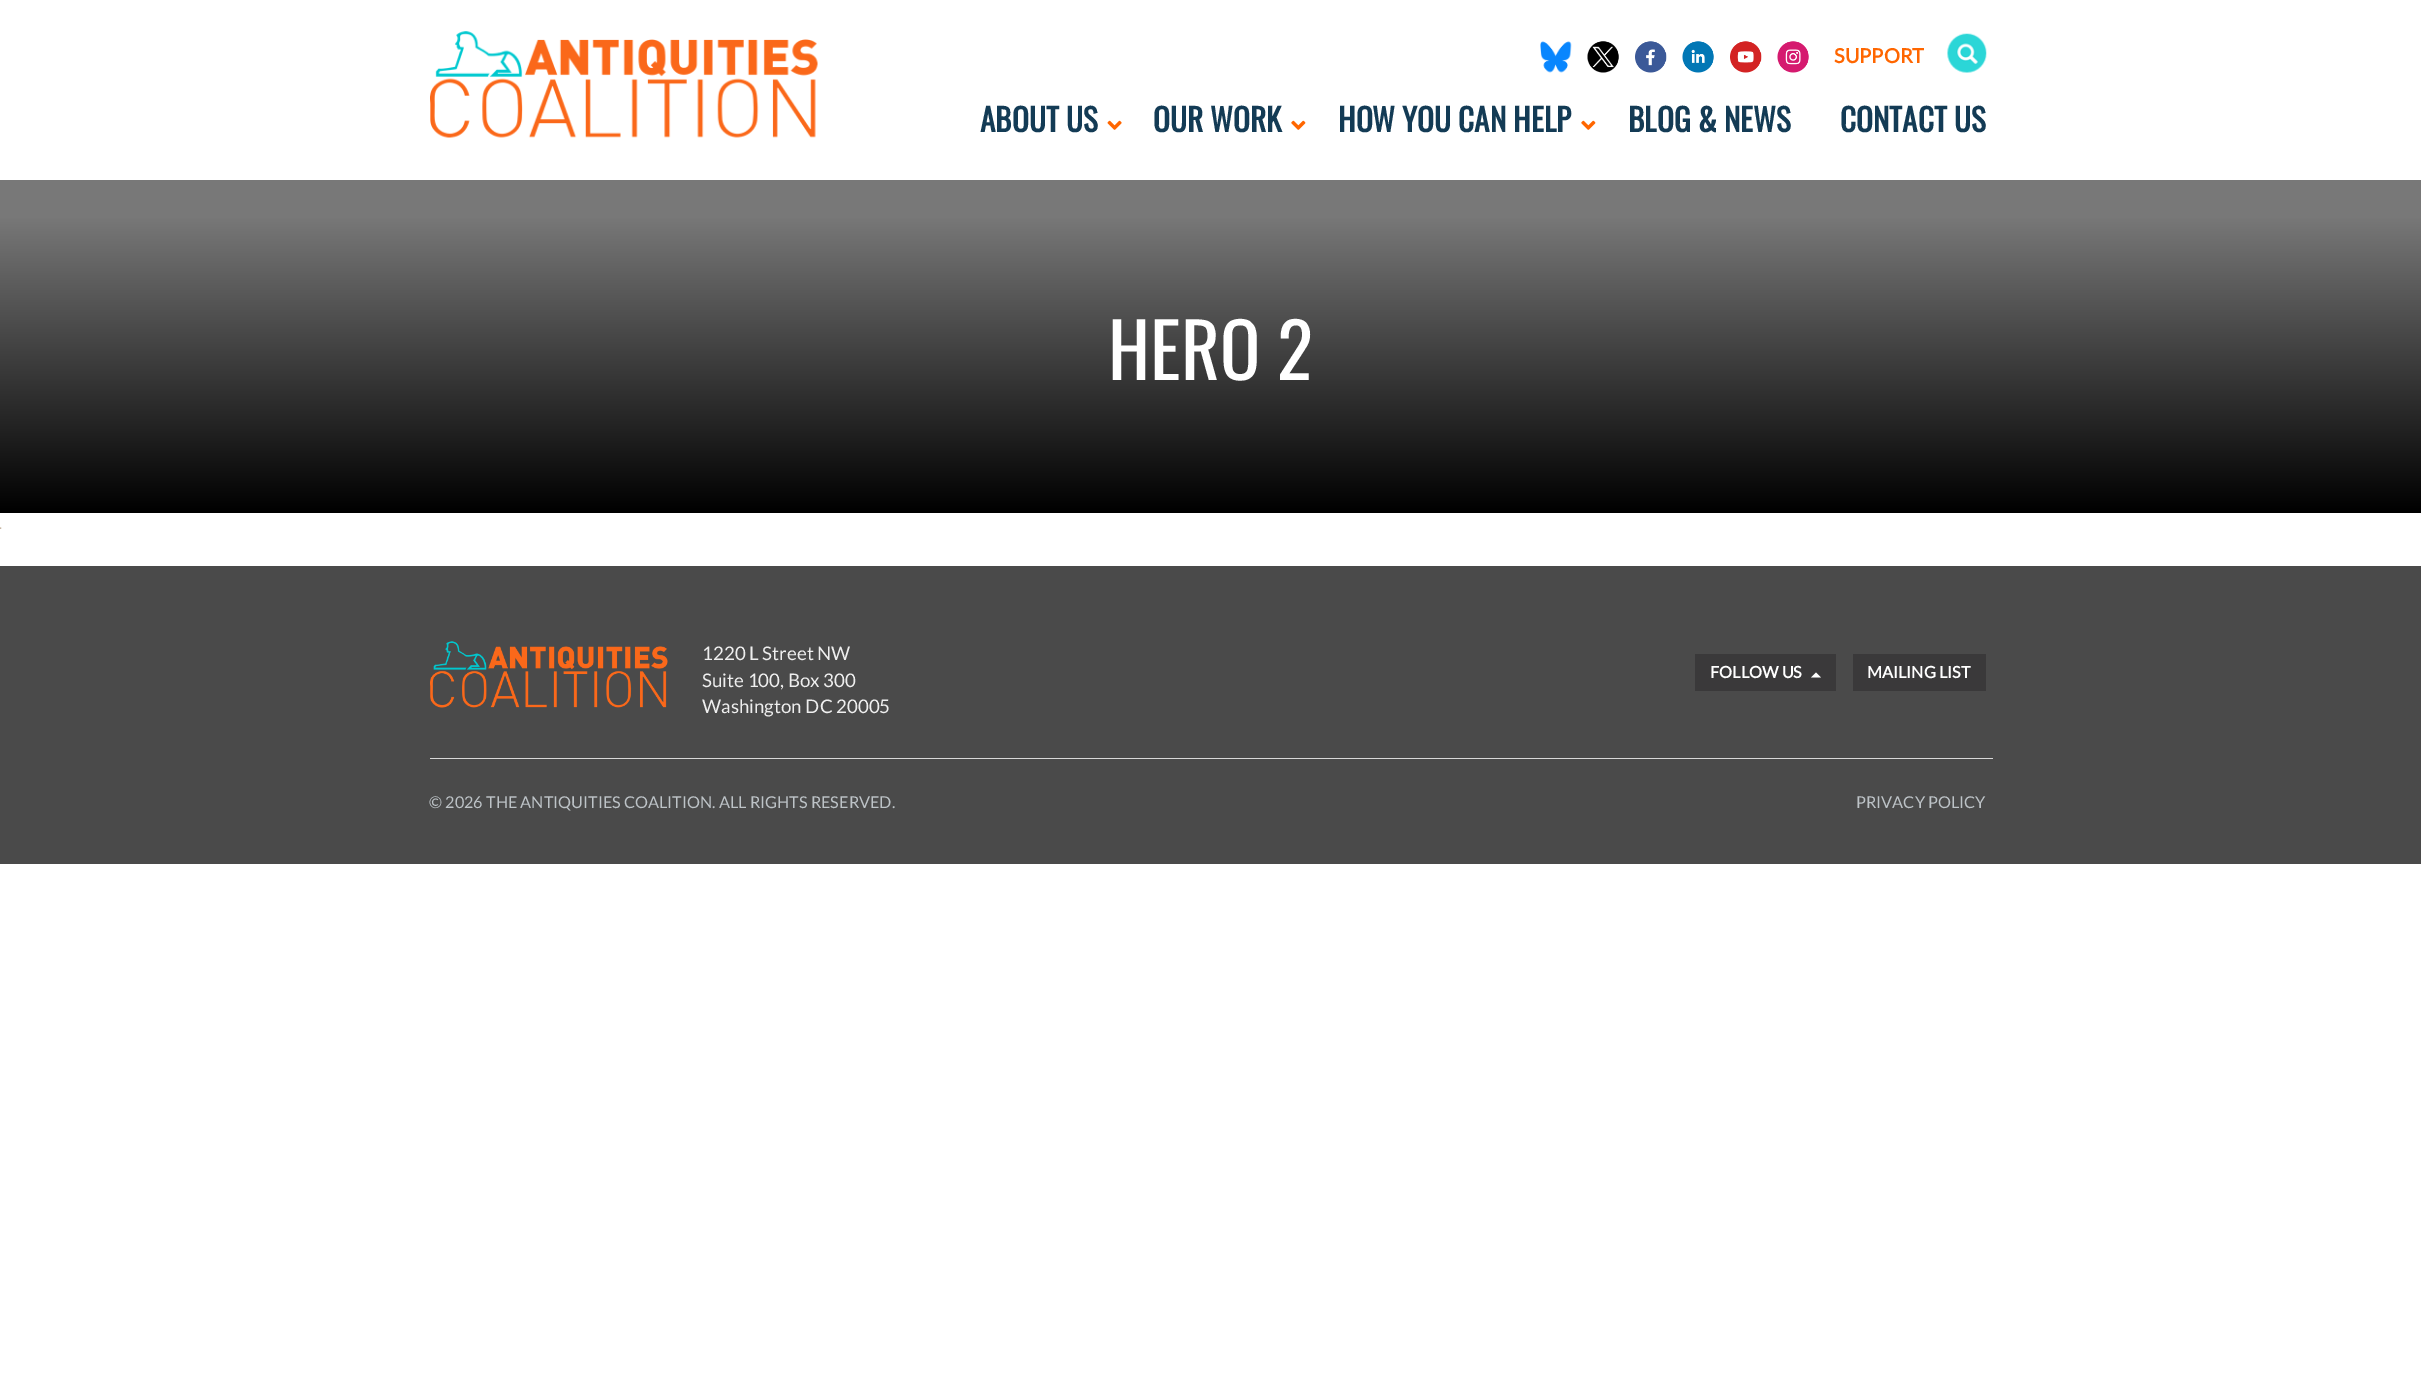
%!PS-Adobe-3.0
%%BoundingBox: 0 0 2421 1382
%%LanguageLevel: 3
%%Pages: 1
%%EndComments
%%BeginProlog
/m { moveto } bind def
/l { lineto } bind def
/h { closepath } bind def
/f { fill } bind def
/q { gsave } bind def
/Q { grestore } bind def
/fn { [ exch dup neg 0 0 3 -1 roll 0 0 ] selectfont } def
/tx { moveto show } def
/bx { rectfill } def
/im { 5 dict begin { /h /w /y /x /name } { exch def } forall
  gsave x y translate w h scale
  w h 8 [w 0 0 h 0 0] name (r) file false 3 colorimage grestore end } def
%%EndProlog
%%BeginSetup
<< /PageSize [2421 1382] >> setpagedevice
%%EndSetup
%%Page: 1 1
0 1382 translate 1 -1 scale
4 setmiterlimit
1 setgray
0 0 2421 1382 bx
(image0.raw) 430 31 388 107 im
(image1.raw) 1540 41 32 32 im
(image2.raw) 1587 41 32 32 im
(image3.raw) 1635 41 32 32 im
(image4.raw) 1682 41 32 32 im
(image5.raw) 1730 41 32 32 im
(image6.raw) 1777 41 32 32 im
/Lato-Bold 20 fn
1 0.4 0 setrgbcolor
(SUPPORT) 1834 63 tx
(image7.raw) 1947 33 40 40 im
/Oswald-Bold 31.25 fn
0.075 0.231 0.333 setrgbcolor
(ABOUT US) 980 132 tx
(image8.raw) 1107 120 15 10 im
(OUR WORK) 1153 132 tx
(image9.raw) 1291 120 15 10 im
(HOW YOU CAN HELP) 1338 132 tx
(image9.raw) 1581 120 15 10 im
(BLOG & NEWS) 1628 132 tx
(CONTACT US) 1840 132 tx
q 0 180 m 2421 180 l 2421 513 l 0 513 l h clip newpath
<< /ShadingType 2 /ColorSpace /DeviceRGB /Coords [1211 180 1211 513] /Extend [true true] /Function << /FunctionType 3 /Domain [0 1] /Functions [<< /FunctionType 2 /Domain [0 1] /C0 [0.471 0.471 0.471] /C1 [0.471 0.471 0.471] /N 1 >> << /FunctionType 2 /Domain [0 1] /C0 [0.471 0.471 0.471] /C1 [0 0 0] /N 1 >>] /Bounds [0.11] /Encode [0 1 0 1] >> >> shfill Q
/Oswald-Regular 75 fn
1 setgray
(HERO 2) 1108 380 tx
(image10.raw) 0 527 2 2 im
0.29 setgray
0 566 2421 298 bx
(image11.raw) 430 641 238 67 im
/Lato-Regular 18.75 fn
0.933 setgray
(1220 L Street NW) 702 660 tx
(Suite 100, Box 300) 702 687 tx
(Washington DC 20005) 702 713 tx
0.227 0.224 0.227 setrgbcolor
1695 654 141 37 bx
/Lato-Bold 16.25 fn
1 setgray
(FOLLOW US) 1710 678 tx
1821 677.5 m 1811 677.5 l 1816 672.5 l h f
0.227 0.224 0.227 setrgbcolor
1853 654 133 37 bx
1 setgray
(MAILING LIST) 1867 678 tx
0.847 setgray
430 758 1563 1 bx
/Lato-Regular 16.25 fn
0.741 0.765 0.78 setrgbcolor
(© 2026 THE ANTIQUITIES COALITION. ALL RIGHTS RESERVED.) 429 808 tx
(PRIVACY POLICY) 1856 808 tx
showpage
%%EOF
